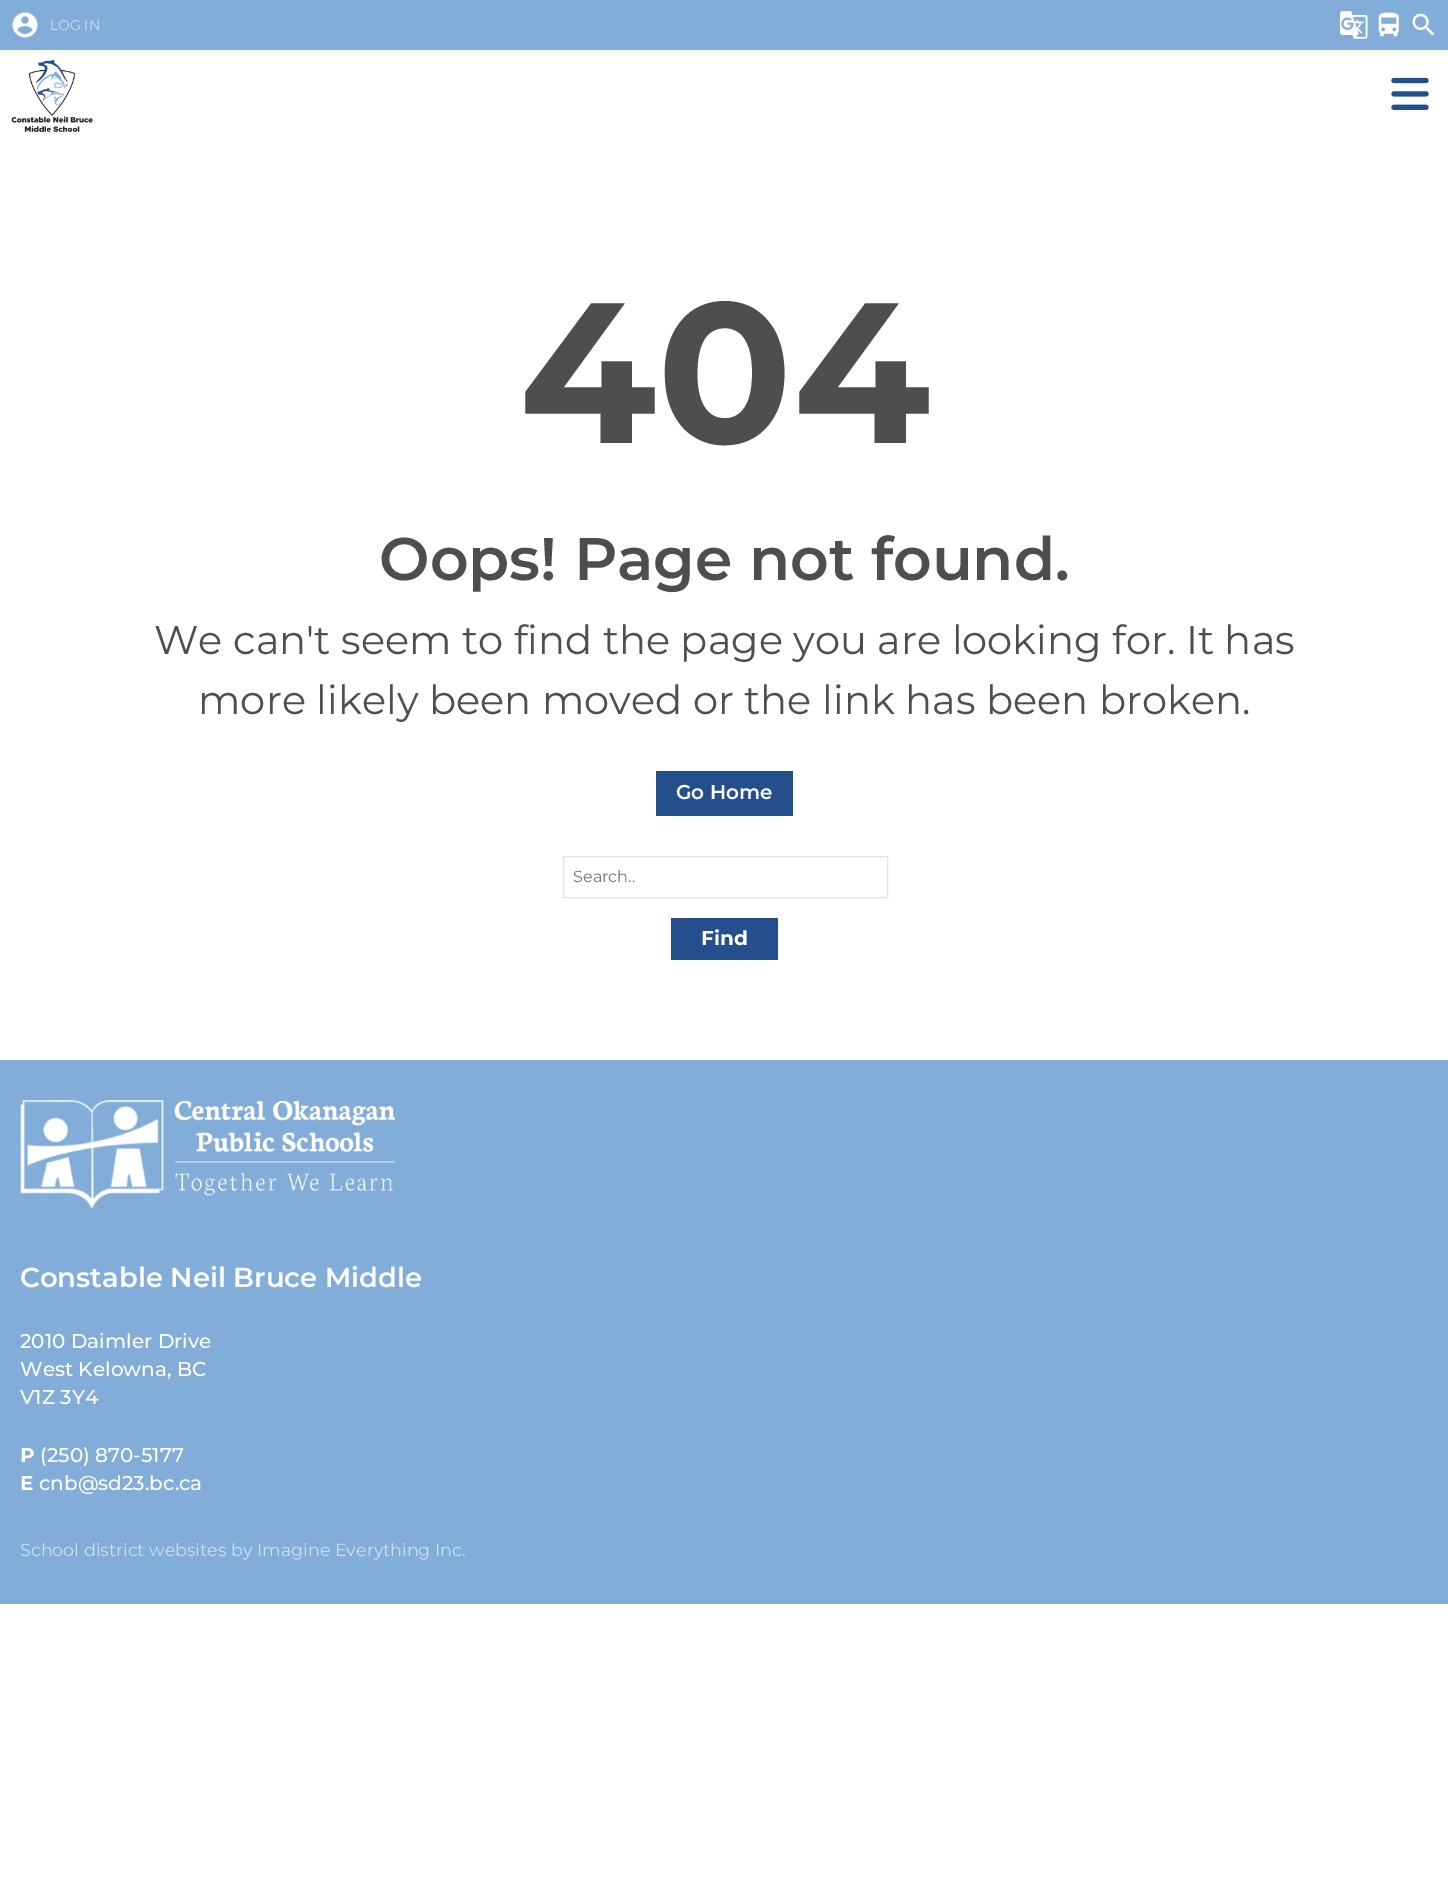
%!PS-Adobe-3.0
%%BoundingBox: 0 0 1448 1886
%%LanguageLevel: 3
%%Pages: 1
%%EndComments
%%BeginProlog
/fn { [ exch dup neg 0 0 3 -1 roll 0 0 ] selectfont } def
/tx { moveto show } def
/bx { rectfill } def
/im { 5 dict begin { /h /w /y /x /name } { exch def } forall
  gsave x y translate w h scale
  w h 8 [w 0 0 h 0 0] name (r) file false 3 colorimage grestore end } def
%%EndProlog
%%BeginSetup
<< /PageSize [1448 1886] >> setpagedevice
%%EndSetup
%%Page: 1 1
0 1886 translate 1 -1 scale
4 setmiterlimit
1 setgray
0 0 1448 1886 bx
0.51 0.678 0.847 setrgbcolor
0 0 1448 50 bx
(image0.raw) 12 12 26 26 im
/Montserrat-Regular 14 fn
0.804 0.871 0.937 setrgbcolor
(LOG IN) 50 30 tx
(image1.raw) 1340 11 28 28 im
(image2.raw) 1378 12 21 25 im
(image3.raw) 1412 13 23 23 im
(image4.raw) 11 60 82 72 im
(image5.raw) 1391 77 38 33 im
/Montserrat-Bold 200 fn
0.306 setgray
(404) 519 443 tx
/Montserrat-SemiBold 60 fn
(Oops! Page not found.) 379 580 tx
/Montserrat-Regular 40 fn
(We can't seem to find the page you are looking for. It has) 154 654 tx
(more likely been moved or the link has been broken.) 198 714 tx
0.141 0.31 0.549 setrgbcolor
656 771 137 45 bx
/Montserrat-SemiBold 20 fn
1 setgray
(Go Home) 676 799 tx
0.894 setgray
563.5 856.5 324 41 rectstroke
/Montserrat-Regular 16 fn
0.459 setgray
(Search..) 573 882 tx
0.141 0.31 0.549 setrgbcolor
671 918 107 42 bx
/Montserrat-Bold 20 fn
1 setgray
(Find) 701 945 tx
0.51 0.678 0.847 setrgbcolor
0 1060 1448 544 bx
(image6.raw) 20 1100 375 109 im
/Montserrat-SemiBold 27.5 fn
1 setgray
(Constable Neil Bruce Middle) 20 1287 tx
/Montserrat-Medium 20 fn
(2010 Daimler Drive) 20 1348 tx
(West Kelowna, BC) 20 1376 tx
(V1Z 3Y4) 20 1404 tx
/Montserrat-Bold 20 fn
(P) 20 1462 tx
/Montserrat-Medium 20 fn
(\(250\) 870-5177) 40 1462 tx
/Montserrat-Bold 20 fn
(E) 20 1490 tx
/Montserrat-Medium 20 fn
(cnb@sd23.bc.ca) 39 1490 tx
/Montserrat-Regular 17.5 fn
0.804 0.871 0.937 setrgbcolor
(School district websites by Imagine Everything Inc.) 20 1556 tx
showpage
%%EOF
